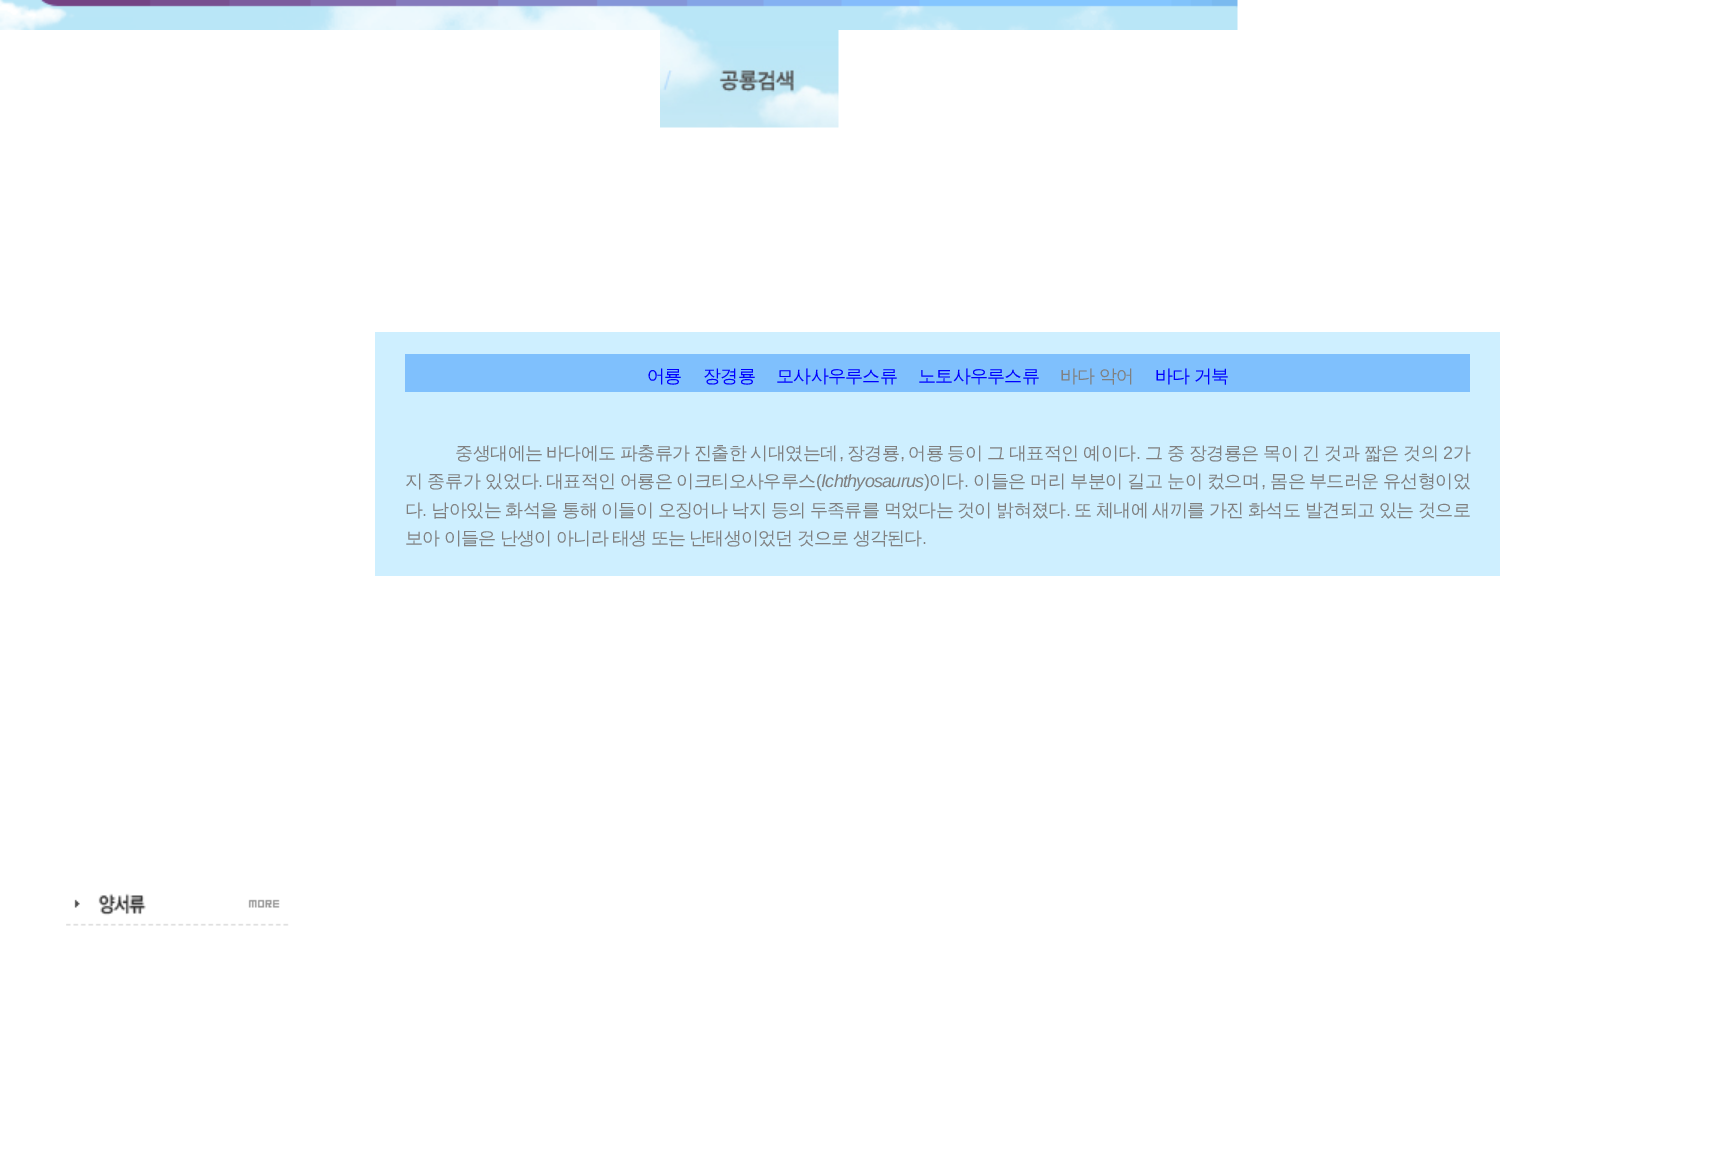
%!PS-Adobe-3.0
%%BoundingBox: 0 0 1722 1155
%%LanguageLevel: 3
%%Pages: 1
%%EndComments
%%BeginProlog
/m { moveto } bind def
/fn { [ exch dup neg 0 0 3 -1 roll 0 0 ] selectfont } def
/bx { rectfill } def
/im { 5 dict begin { /h /w /y /x /name } { exch def } forall
  gsave x y translate w h scale
  w h 8 [w 0 0 h 0 0] name (r) file false 3 colorimage grestore end } def
%%EndProlog
%%BeginSetup
<< /PageSize [1722 1155] >> setpagedevice
%%EndSetup
%%Page: 1 1
0 1155 translate 1 -1 scale
4 setmiterlimit
1 setgray
0 0 1722 1155 bx
(image0.raw) 0 0 1238 30 im
(image1.raw) 660 30 179 98 im
0.808 0.937 1 setrgbcolor
375 332 1125 244 bx
0.498 0.753 0.992 setrgbcolor
405 354 1065 38 bx
/WenQuanYiZenHei-Medium 18 fn
0 0 1 setrgbcolor
647 382 m -0.75 0 (어룡) ashow
703 382 m -0.75 0 (장경룡) ashow
776 382 m -0.75 0 (모사사우루스류) ashow
918 382 m -0.75 0 (노토사우루스류) ashow
0.502 setgray
1060 382 m -0.75 0 (바다) ashow
1099 382 m -0.75 0 (악어) ashow
0 0 1 setrgbcolor
1155 382 m -0.5 0 32 -0.75 0 (바다 거북) awidthshow
0.502 setgray
455 459 m -0.5 0 (중생대에는) ashow
546 459 m -0.5 0 32 -0.6 0 (바다에도 파충류가 진출한 시대였는데) awidthshow
847 459 m -0.6 0 (장경룡) ashow
908 459 m -0.5 0 32 -0.5 0 (어룡 등이 그 대표적인 예이다) awidthshow
1145 459 m -0.5 0 32 -0.5 0 (그 중 장경룡은) awidthshow
1263 459 m -0.5 0 32 -0.5 0 (목이 긴 것과 짧은 것의) awidthshow
/LiberationSans-Regular 18 fn
1443 459 m -0.5 0 (2) ashow
/WenQuanYiZenHei-Medium 18 fn
1453 459 m -0.5 0 (가) ashow
/LiberationSans-Regular 18 fn
839 459 m -0.6 0 (,) ashow
900 459 m -0.6 0 (,) ashow
1136 459 m -0.5 0 (.) ashow
/WenQuanYiZenHei-Medium 18 fn
405 487 m -0.5 0 32 -0.25 0 (지 종류가 있었다) awidthshow
/LiberationSans-Regular 18 fn
538 487 m -0.25 0 (.) ashow
/WenQuanYiZenHei-Medium 18 fn
546 487 m -0.5 0 32 -0.6 0 (대표적인 어룡은 이크티오사우루스) awidthshow
/LiberationSans-Regular 18 fn
816 487 m -0.6 0 (\() ashow
/LiberationSans-Italic 18 fn
821 487 m -0.75 0 (Ichthyosaurus) ashow
/LiberationSans-Regular 18 fn
924 487 m -0.75 0 (\)) ashow
/WenQuanYiZenHei-Medium 18 fn
929 487 m -0.75 0 (이다) ashow
/LiberationSans-Regular 18 fn
964 487 m -0.75 0 (.) ashow
/WenQuanYiZenHei-Medium 18 fn
973 487 m -0.5 0 32 -0.4 0 (이들은 머리 부분이 길고 눈이 컸으며) awidthshow
/LiberationSans-Regular 18 fn
1261 487 m -0.4 0 (,) ashow
/WenQuanYiZenHei-Medium 18 fn
1270 487 m -0.4 0 (몸은) ashow
1309 487 m -0.5 0 32 -0.6 0 (부드러운 유선형이었) awidthshow
405 516 m -0.5 0 (다) ashow
/LiberationSans-Regular 18 fn
422 516 m -0.5 0 (.) ashow
/WenQuanYiZenHei-Medium 18 fn
431 516 m -0.5 0 32 -0.5 0 (남아있는 화석을 통해) awidthshow
601 516 m -0.5 0 32 -0.6 0 (이들이 오징어나 낙지 등의 두족류를 먹었다는) awidthshow
957 516 m -0.5 0 32 -0.6 0 (것이 밝혀졌다) awidthshow
/LiberationSans-Regular 18 fn
1066 516 m -0.6 0 (.) ashow
/WenQuanYiZenHei-Medium 18 fn
1074 516 m -0.5 0 32 -0.6 0 (또 체내에 새끼를 가진 화석도) awidthshow
1305 516 m -0.5 0 32 -0.6 0 (발견되고 있는 것으로) awidthshow
405 544 m -0.5 0 32 -0.75 0 (보아 이들은 난생이) awidthshow
556 544 m -0.5 0 32 -0.75 0 (아니라 태생 또는 난태생이었던 것으로 생각된다) awidthshow
/LiberationSans-Regular 18 fn
922 544 m -0.75 0 (.) ashow
(image2.raw) 66 893 223 33 im
showpage
%%EOF
